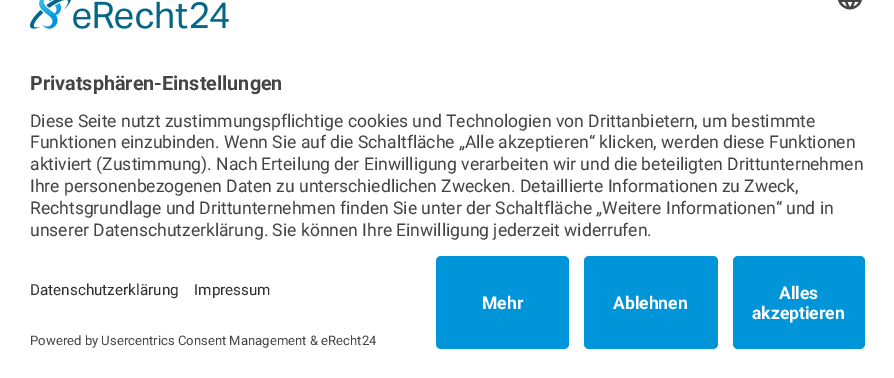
%!PS-Adobe-3.0
%%BoundingBox: 0 0 894 378
%%LanguageLevel: 3
%%Pages: 1
%%EndComments
%%BeginProlog
/f { fill } bind def
/fn { [ exch dup neg 0 0 3 -1 roll 0 0 ] selectfont } def
/tx { moveto show } def
/bx { rectfill } def
/rr { 5 dict begin { /r /h /w /y /x } { exch def } forall
  x r add y moveto x w add y 2 copy h add r arct x w add y h add x 1 index r arct
  x y h add x y r arct x y 2 copy exch w add exch r arct closepath end } def
/im { 5 dict begin { /h /w /y /x /name } { exch def } forall
  gsave x y translate w h scale
  w h 8 [w 0 0 h 0 0] name (r) file false 3 colorimage grestore end } def
%%EndProlog
%%BeginSetup
<< /PageSize [894 378] >> setpagedevice
%%EndSetup
%%Page: 1 1
0 378 translate 1 -1 scale
4 setmiterlimit
1 setgray
0 0 894 378 bx
(image0.raw) 30 0 199 29 im
(image1.raw) 838 0 24 10 im
/Roboto-Bold 19.75 fn
0.267 setgray
(Privatsphären-Einstellungen) 30 90 tx
/Roboto-Regular 17.5 fn
(Diese Seite nutzt zustimmungspflichtige cookies und Technologien von Drittanbietern, um bestimmte) 30 127 tx
(Funktionen einzubinden. Wenn Sie auf die Schaltfläche „Alle akzeptieren“ klicken, werden diese Funktionen) 30 148 tx
(aktiviert \(Zustimmung\). Nach Erteilung der Einwilligung verarbeiten wir und die beteiligten Drittunternehmen) 30 170 tx
(Ihre personenbezogenen Daten zu unterschiedlichen Zwecken. Detaillierte Informationen zu Zweck,) 30 192 tx
(Rechtsgrundlage und Drittunternehmen finden Sie unter der Schaltfläche „Weitere Informationen“ und in) 30 214 tx
(unserer Datenschutzerklärung. Sie können Ihre Einwilligung jederzeit widerrufen.) 30 236 tx
/Roboto-Regular 15.25 fn
0.188 setgray
(Datenschutzerklärung) 30 295 tx
(Impressum) 194 295 tx
/Roboto-Regular 13.1 fn
0.267 setgray
(Powered by Usercentrics Consent Management & eRecht24) 30 345 tx
0 0.58 0.847 setrgbcolor
436 256 133 93 5 rr f
/Roboto-Bold 17.5 fn
1 setgray
(Mehr) 482 309 tx
0 0.58 0.847 setrgbcolor
584 256 134 93 5 rr f
1 setgray
(Ablehnen) 613 309 tx
0 0.58 0.847 setrgbcolor
733 256 132 93 5 rr f
1 setgray
(Alles) 779 299 tx
(akzeptieren) 752 319 tx
showpage
%%EOF
